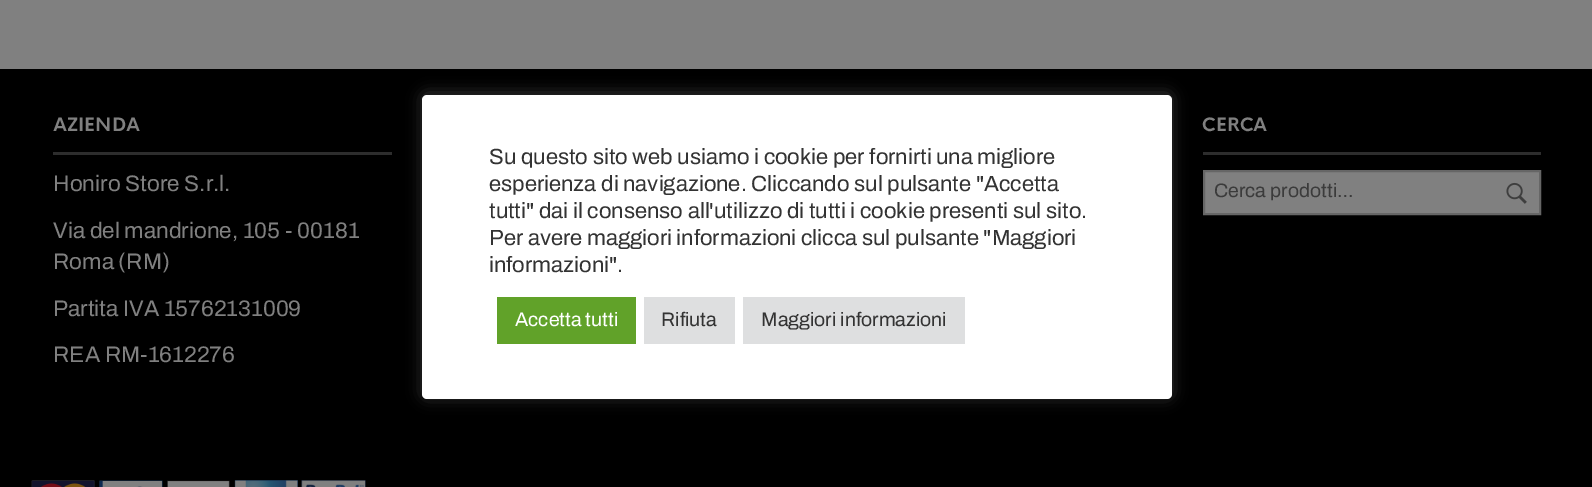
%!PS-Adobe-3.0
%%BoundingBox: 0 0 1592 487
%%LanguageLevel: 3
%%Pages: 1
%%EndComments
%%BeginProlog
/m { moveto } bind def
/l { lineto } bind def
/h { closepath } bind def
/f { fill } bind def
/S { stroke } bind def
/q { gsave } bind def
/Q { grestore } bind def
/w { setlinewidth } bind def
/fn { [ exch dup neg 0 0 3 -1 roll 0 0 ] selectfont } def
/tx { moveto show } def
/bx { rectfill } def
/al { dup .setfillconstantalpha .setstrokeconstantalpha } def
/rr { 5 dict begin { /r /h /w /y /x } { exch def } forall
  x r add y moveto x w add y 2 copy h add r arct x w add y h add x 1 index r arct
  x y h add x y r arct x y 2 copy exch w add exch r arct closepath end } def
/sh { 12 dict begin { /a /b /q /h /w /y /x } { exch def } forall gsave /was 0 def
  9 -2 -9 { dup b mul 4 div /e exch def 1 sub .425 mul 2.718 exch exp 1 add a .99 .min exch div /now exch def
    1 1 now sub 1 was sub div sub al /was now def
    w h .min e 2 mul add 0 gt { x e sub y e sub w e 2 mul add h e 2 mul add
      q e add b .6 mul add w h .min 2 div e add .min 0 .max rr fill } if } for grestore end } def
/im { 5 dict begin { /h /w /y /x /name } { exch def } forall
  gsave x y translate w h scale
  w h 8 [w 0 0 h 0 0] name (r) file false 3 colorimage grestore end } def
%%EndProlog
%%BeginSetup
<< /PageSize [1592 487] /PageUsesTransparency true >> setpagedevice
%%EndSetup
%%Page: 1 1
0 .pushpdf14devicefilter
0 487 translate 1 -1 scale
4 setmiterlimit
0.502 setgray
0 0 1592 487 bx
0 setgray
0 69 1592 418 bx
0.176 setgray
53 152 339 3 bx
/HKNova-Bold 18 fn
0.502 setgray
(AZIENDA) 53 131 tx
/Archivo-Regular 22.5 fn
(Honiro Store S.r.l.) 53 191 tx
(Via del mandrione, 105 - 00181) 53 238 tx
(Roma \(RM\)) 53 269 tx
(Partita IVA 15762131009) 53 316 tx
(REA RM-1612276) 53 362 tx
0.176 setgray
1203 152 338 3 bx
/HKNova-Bold 18 fn
0.502 setgray
(CERCA) 1202 131 tx
1204 171 m 1540 171 l 1540 214 l 1204 214 l h q f Q
0.4 setgray
2 w
S
/Archivo-Regular 19.5 fn
0.231 setgray
(Cerca prodotti…) 1214 197 tx
(image0.raw) 1506 182 21 22 im
(image1.raw) 31 480 335 7 im
0.675 0.671 0.671 setrgbcolor
422 93 750 305 5 7.5 0.3 sh
1 setgray
422 95 750 304 5 rr f
/Archivo-Regular 22 fn
0.2 setgray
(Su questo sito web usiamo i cookie per fornirti una migliore) 489 164 tx
(esperienza di navigazione. Cliccando sul pulsante "Accetta) 489 191 tx
(tutti" dai il consenso all'utilizzo di tutti i cookie presenti sul sito.) 489 218 tx
(Per avere maggiori informazioni clicca sul pulsante "Maggiori) 489 245 tx
(informazioni".) 489 272 tx
0.38 0.635 0.161 setrgbcolor
497 297 139 47 bx
/Archivo-Regular 19.5 fn
1 setgray
(Accetta tutti) 515 326 tx
0.871 0.875 0.878 setrgbcolor
644 297 91 47 bx
0.2 setgray
(Rifiuta) 661 326 tx
0.871 0.875 0.878 setrgbcolor
743 297 222 47 bx
0.2 setgray
(Maggiori informazioni) 761 326 tx
.poppdf14devicefilter showpage
%%EOF
